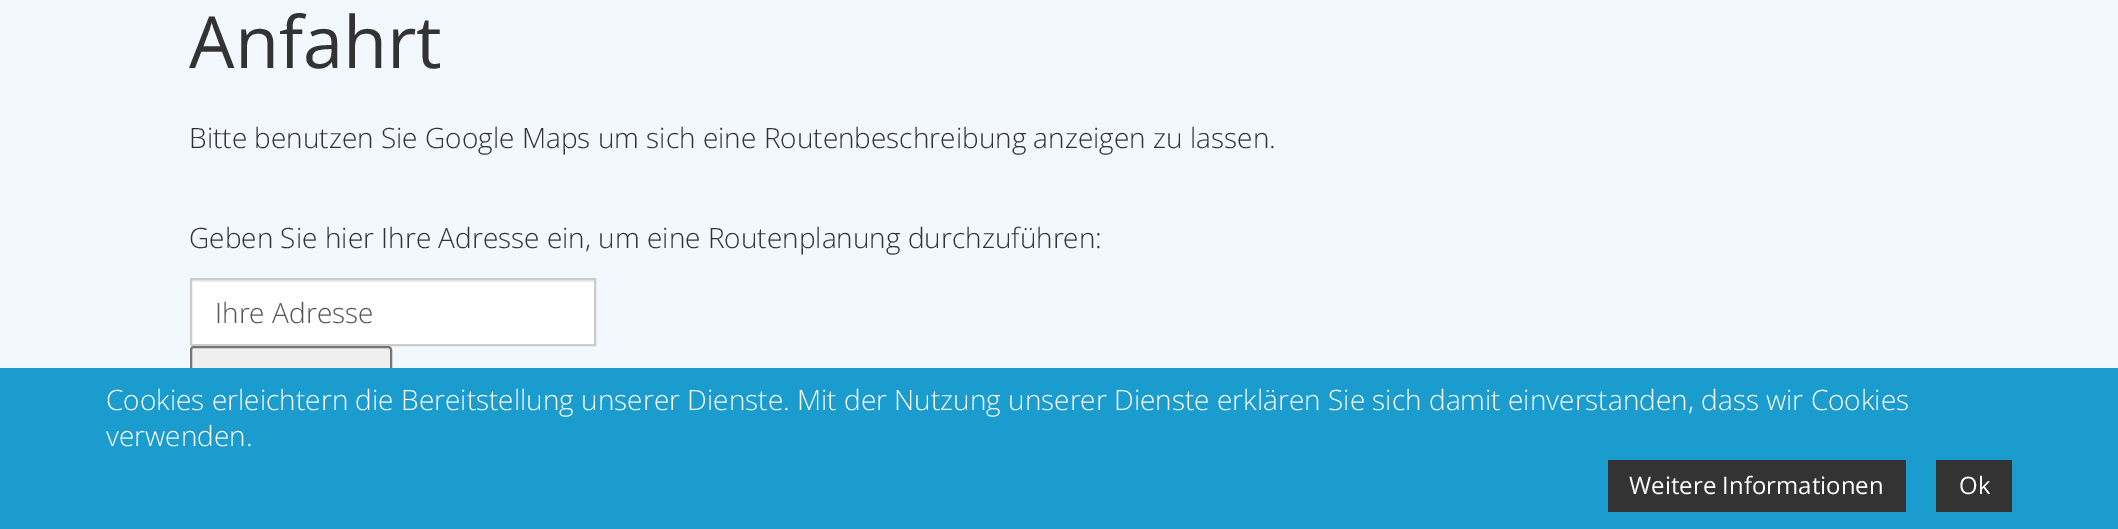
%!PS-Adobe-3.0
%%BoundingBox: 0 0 2118 529
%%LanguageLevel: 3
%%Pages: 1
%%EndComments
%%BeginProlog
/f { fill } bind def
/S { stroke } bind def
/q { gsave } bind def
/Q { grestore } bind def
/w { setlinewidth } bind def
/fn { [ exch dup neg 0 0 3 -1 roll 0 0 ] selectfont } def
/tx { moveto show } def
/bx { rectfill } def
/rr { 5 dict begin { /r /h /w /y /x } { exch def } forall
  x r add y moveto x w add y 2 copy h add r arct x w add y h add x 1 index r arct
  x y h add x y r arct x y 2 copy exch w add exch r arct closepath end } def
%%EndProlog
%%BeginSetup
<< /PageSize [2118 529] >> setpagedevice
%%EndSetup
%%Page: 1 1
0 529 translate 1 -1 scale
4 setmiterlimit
0.953 0.973 1 setrgbcolor
0 0 2118 529 bx
/OpenSans-Regular 72 fn
0.2 setgray
(Anfahrt) 189 68 tx
/OpenSans-Light 28 fn
(Bitte benutzen Sie Google Maps um sich eine Routenbeschreibung anzeigen zu lassen.) 189 148 tx
(Geben Sie hier Ihre Adresse ein, um eine Routenplanung durchzuführen:) 189 248 tx
1 setgray
192 282 402 62 bx
0.925 setgray
192 280 402 2 bx
0.8 setgray
2 w
191 279 404 66 rectstroke
0.333 setgray
(Ihre Adresse) 215 323 tx
0.937 setgray
191 347 200 50 3 rr q f Q
0.463 setgray
S
0.106 0.612 0.812 setrgbcolor
0 368 2118 161 bx
1 setgray
(Cookies erleichtern die Bereitstellung unserer Dienste. Mit der Nutzung unserer Dienste erklären Sie sich damit einverstanden, dass wir Cookies) 106 410 tx
(verwenden.) 106 446 tx
0.2 setgray
1608 460 298 52 bx
/OpenSans-Regular 24 fn
1 setgray
(Weitere Informationen) 1629 494 tx
0.2 setgray
1936 460 76 52 bx
1 setgray
(Ok) 1959 494 tx
showpage
%%EOF
